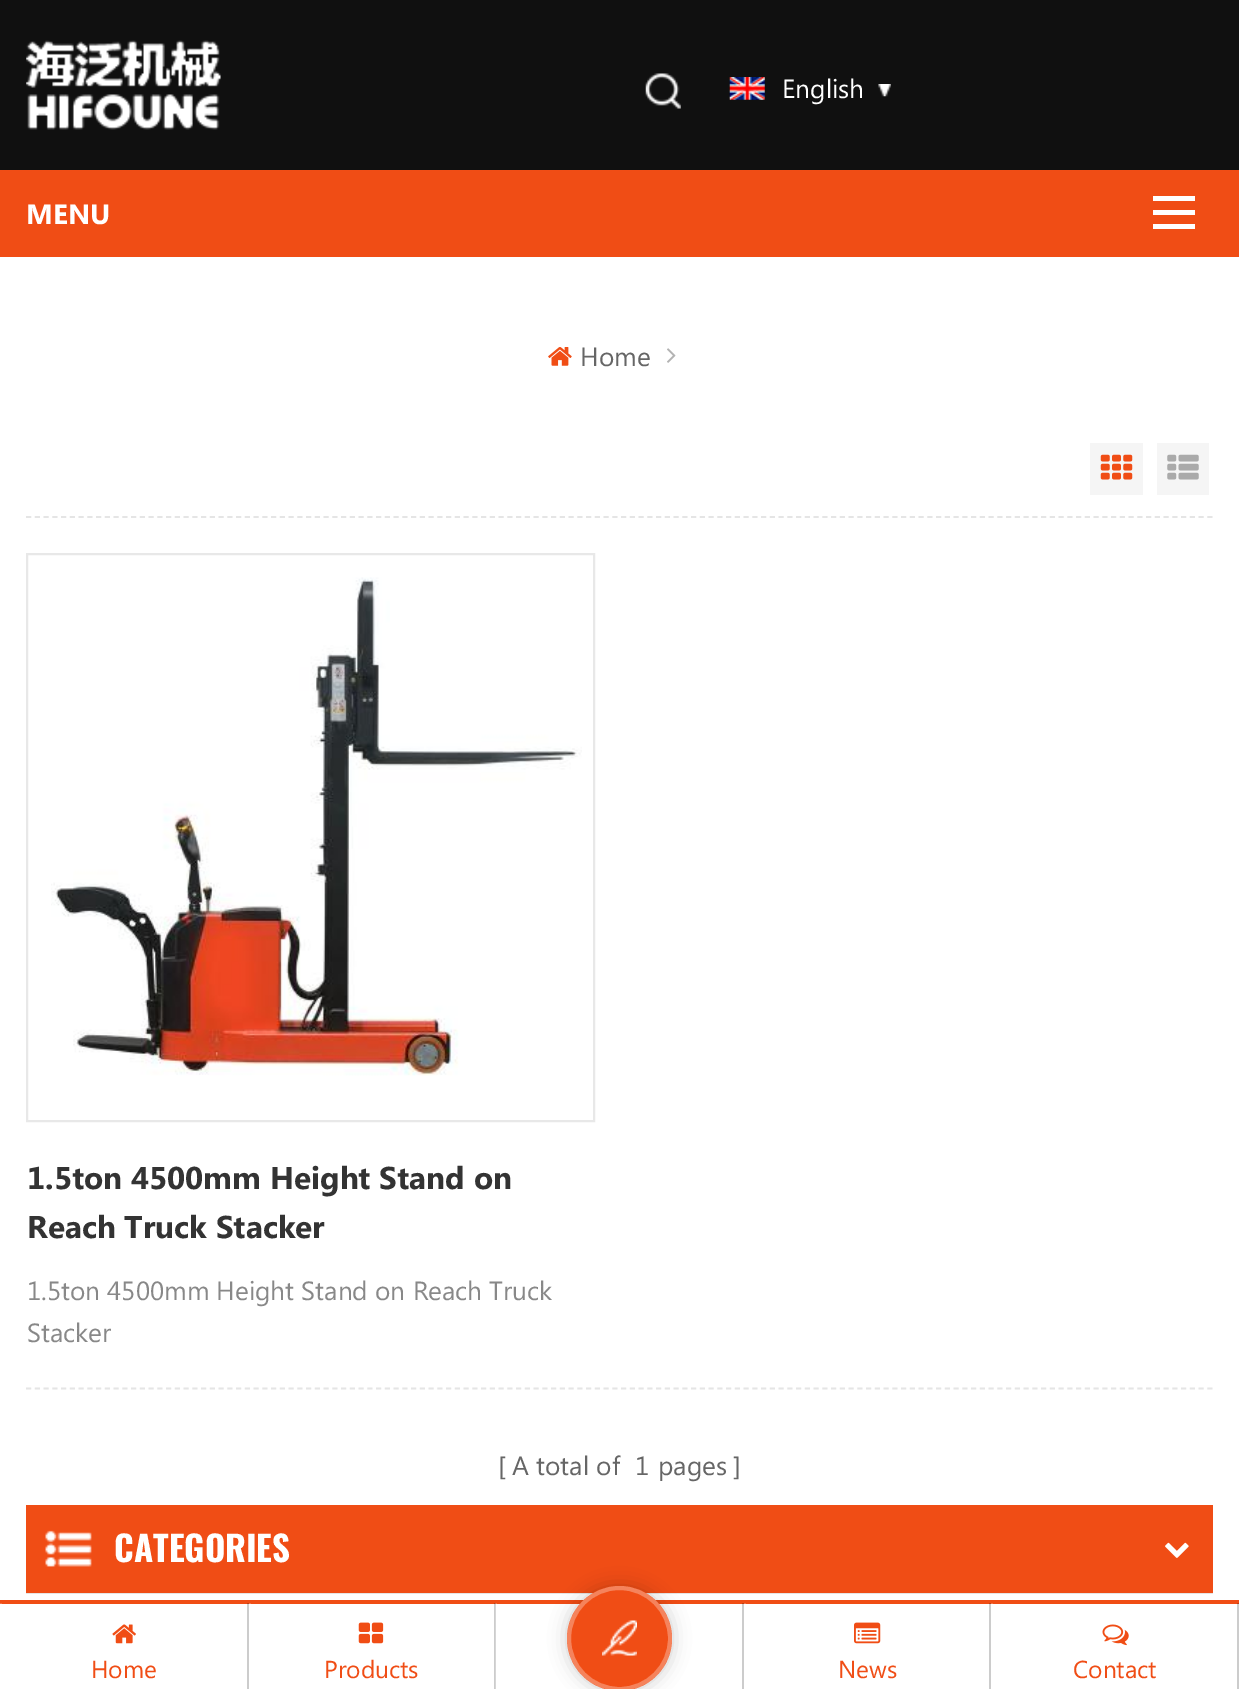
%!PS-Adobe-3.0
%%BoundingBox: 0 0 1239 1689
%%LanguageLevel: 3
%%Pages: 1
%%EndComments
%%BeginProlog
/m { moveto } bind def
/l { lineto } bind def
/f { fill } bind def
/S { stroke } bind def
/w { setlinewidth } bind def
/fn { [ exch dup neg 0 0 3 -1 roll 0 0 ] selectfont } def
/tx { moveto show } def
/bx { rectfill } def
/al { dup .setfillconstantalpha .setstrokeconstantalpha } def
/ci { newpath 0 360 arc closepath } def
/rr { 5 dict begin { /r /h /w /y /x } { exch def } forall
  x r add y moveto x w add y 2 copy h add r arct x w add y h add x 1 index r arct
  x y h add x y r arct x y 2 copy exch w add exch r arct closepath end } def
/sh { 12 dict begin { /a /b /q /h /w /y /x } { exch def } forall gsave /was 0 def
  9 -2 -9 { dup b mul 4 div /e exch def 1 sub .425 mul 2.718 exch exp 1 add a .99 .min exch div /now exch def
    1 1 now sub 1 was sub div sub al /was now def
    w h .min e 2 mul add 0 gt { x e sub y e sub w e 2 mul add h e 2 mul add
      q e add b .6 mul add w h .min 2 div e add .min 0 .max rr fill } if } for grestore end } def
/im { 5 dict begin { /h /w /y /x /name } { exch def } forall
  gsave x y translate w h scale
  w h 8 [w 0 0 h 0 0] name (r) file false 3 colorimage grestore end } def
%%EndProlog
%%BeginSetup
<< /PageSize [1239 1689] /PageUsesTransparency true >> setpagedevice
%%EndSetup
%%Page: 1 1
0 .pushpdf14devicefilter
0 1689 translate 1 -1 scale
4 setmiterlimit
1 setgray
0 0 1239 1689 bx
0.063 setgray
0 0 1239 170 bx
(image0.raw) 26 40 195 90 im
(image1.raw) 645 73 36 36 im
(image2.raw) 729 77 36 23 im
/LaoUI-Regular 26.25 fn
1 setgray
(English) 782 98 tx
(image3.raw) 878 84 13 13 im
0.941 0.302 0.082 setrgbcolor
0 170 1239 87 bx
/LaoUI-Bold 28 fn
1 setgray
(MENU) 26 224 tx
1153 196 42 5 bx
1153 210 42 5 bx
1153 224 42 5 bx
(image4.raw) 548 347 24 19 im
/LaoUI-Regular 26.25 fn
0.4 setgray
(Home) 580 366 tx
(image5.raw) 667 348 9 15 im
0.898 setgray
1.8 w
[5.25 3.5] 0 setdash
26 517 m 1213 517 l S
0.961 setgray
1090 443 53 52 bx
(image6.raw) 1100 454 33 26 im
1157 443 52 52 bx
(image7.raw) 1167 454 32 26 im
0.91 setgray
2 w
[] 0 setdash
27 554 567 567 rectstroke
(image8.raw) 51 577 531 499 im
/LaoUI-Bold 31.5 fn
0.2 setgray
(1.5ton 4500mm Height Stand on) 27 1189 tx
(Reach Truck Stacker) 27 1238 tx
/LaoUI-Regular 26.25 fn
0.533 setgray
(1.5ton 4500mm Height Stand on Reach Truck) 27 1300 tx
(Stacker) 27 1342 tx
0.898 setgray
1.8 w
[5.25 3.5] 0 setdash
26 1388.5 m 1213 1388.5 l S
0.4 setgray
([) 498 1475 tx
(A total of) 512 1475 tx
(1) 635 1475 tx
(pages) 658 1475 tx
(]) 733 1475 tx
0.941 0.302 0.082 setrgbcolor
26 1505 1187 88 bx
0.898 setgray
26 1593 1187 1 bx
(image9.raw) 45 1530 47 37 im
/Oswald-Bold 35 fn
1 setgray
(CATEGORIES) 114 1562 tx
(image10.raw) 1165 1542 24 16 im
0.941 0.302 0.082 setrgbcolor
0 1600 1239 4 bx
0 setgray
567 1586 105 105 52.5 9 0.2 sh
0.941 0.302 0.082 setrgbcolor
619.5 1638.5 52.5 ci f
0.3 al
1 setgray
4 w
[] 0 setdash
619.5 1638.5 50.5 ci S
1 al
(image11.raw) 602 1620 35 36 im
0.2 al
0 setgray
247 1603 2 86 bx
1 setgray
0 1603 2 1 bx
1 al
(image12.raw) 112 1624 24 20 im
/LaoUI-Regular 24.5 fn
0.941 0.302 0.082 setrgbcolor
(Home) 91 1678 tx
0.2 al
0 setgray
494 1603 2 86 bx
1 setgray
249 1603 2 1 bx
1 al
(image13.raw) 358 1622 26 22 im
0.941 0.302 0.082 setrgbcolor
(Products) 324 1678 tx
0.2 al
0 setgray
742 1603 2 86 bx
1 setgray
495 1603 2 86 bx
0 setgray
989 1603 2 86 bx
1 setgray
744 1603 2 1 bx
1 al
(image14.raw) 854 1622 27 22 im
0.941 0.302 0.082 setrgbcolor
(News) 838 1678 tx
0.2 al
0 setgray
1237 1603 2 86 bx
1 setgray
991 1603 2 1 bx
1 al
(image15.raw) 1102 1624 27 22 im
0.941 0.302 0.082 setrgbcolor
(Contact) 1073 1678 tx
.poppdf14devicefilter showpage
%%EOF
